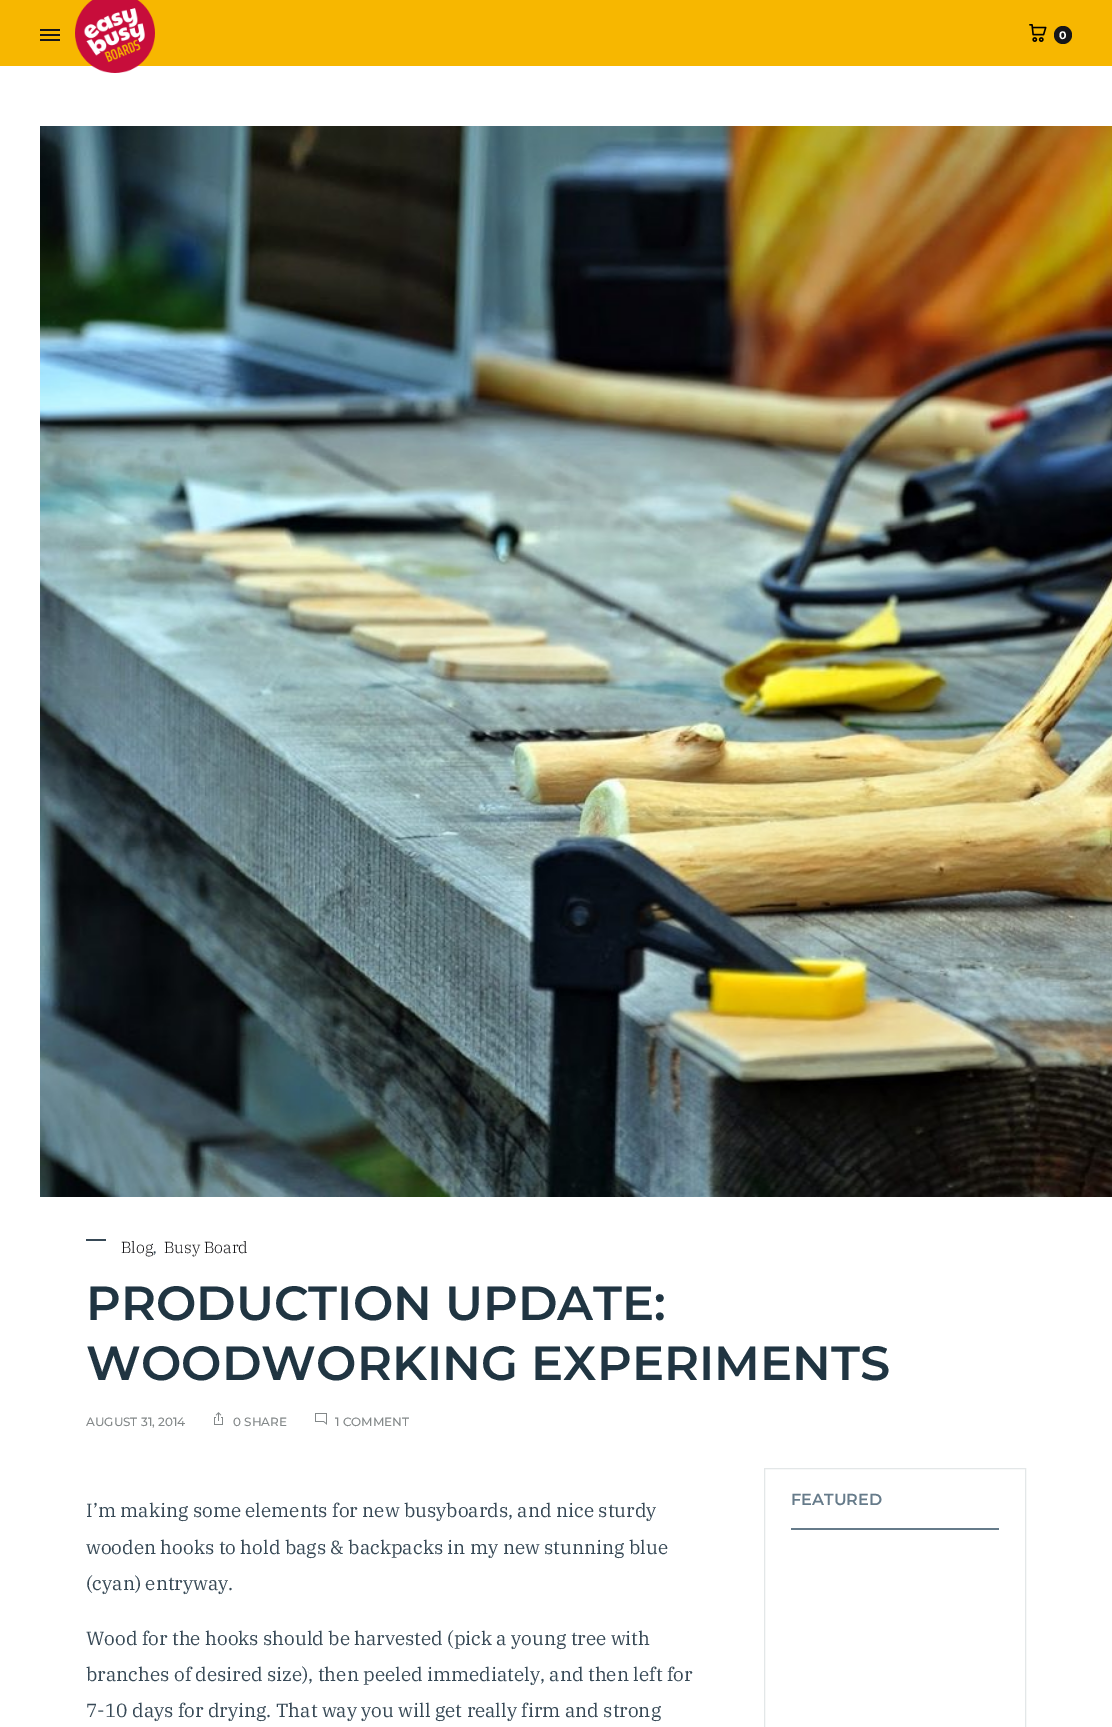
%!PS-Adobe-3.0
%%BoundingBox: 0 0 1112 1727
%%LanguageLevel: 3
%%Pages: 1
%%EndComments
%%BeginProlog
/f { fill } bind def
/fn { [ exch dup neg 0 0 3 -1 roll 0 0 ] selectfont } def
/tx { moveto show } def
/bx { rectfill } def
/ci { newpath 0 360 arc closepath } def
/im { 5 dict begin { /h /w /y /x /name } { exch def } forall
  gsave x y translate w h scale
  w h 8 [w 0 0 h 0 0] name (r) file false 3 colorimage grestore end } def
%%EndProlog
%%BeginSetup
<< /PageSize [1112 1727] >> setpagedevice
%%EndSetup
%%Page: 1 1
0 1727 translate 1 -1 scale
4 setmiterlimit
1 setgray
0 0 1112 1727 bx
0.969 0.718 0 setrgbcolor
0 0 1112 66 bx
0.086 0.086 0.098 setrgbcolor
40 34 20 2 bx
40 29 20 2 bx
40 39 20 2 bx
(image0.raw) 75 0 80 73 im
(image1.raw) 1029 24 18 18 im
1063 35 9 ci f
/Montserrat-Bold 11 fn
1 setgray
(0) 1059 39 tx
(image2.raw) 40 126 1072 1071 im
0.216 0.286 0.337 setrgbcolor
86 1239 20 2 bx
/IBMPlexSerif-Light 16 fn
0.086 0.086 0.098 setrgbcolor
(Blog) 121 1253 tx
/IBMPlexSerif-SemiBold 12 fn
0.216 0.286 0.337 setrgbcolor
(,) 153 1253 tx
/IBMPlexSerif-Light 16 fn
0.086 0.086 0.098 setrgbcolor
(Busy Board) 164 1253 tx
/Montserrat-SemiBold 48 fn
0.125 0.208 0.259 setrgbcolor
(PRODUCTION UPDATE:) 86 1320 tx
(WOODWORKING EXPERIMENTS) 86 1380 tx
/Montserrat-Medium 12 fn
0.514 0.533 0.537 setrgbcolor
(AUGUST 31, 2014) 86 1426 tx
(image3.raw) 214 1412 9 13 im
(0 SHARE) 233 1426 tx
(image4.raw) 315 1413 12 12 im
(1 COMMENT) 335 1426 tx
0.89 0.906 0.91 setrgbcolor
764.5 1468.5 261 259 rectstroke
0.4 0.482 0.541 setrgbcolor
791 1528 208 2 bx
/Montserrat-SemiBold 16 fn
(FEATURED) 791 1505 tx
/IBMPlexSerif-Regular 19 fn
0.216 0.286 0.337 setrgbcolor
(I’m making some elements for new busyboards, and nice sturdy) 86 1517 tx
(wooden hooks to hold bags & backpacks in my new stunning blue) 86 1554 tx
(\(cyan\) entryway.) 86 1590 tx
(Wood for the hooks should be harvested \(pick a young tree with) 86 1645 tx
(branches of desired size\), then peeled immediately, and then left for) 86 1681 tx
(7-10 days for drying. That way you will get really firm and strong) 86 1717 tx
showpage
%%EOF
